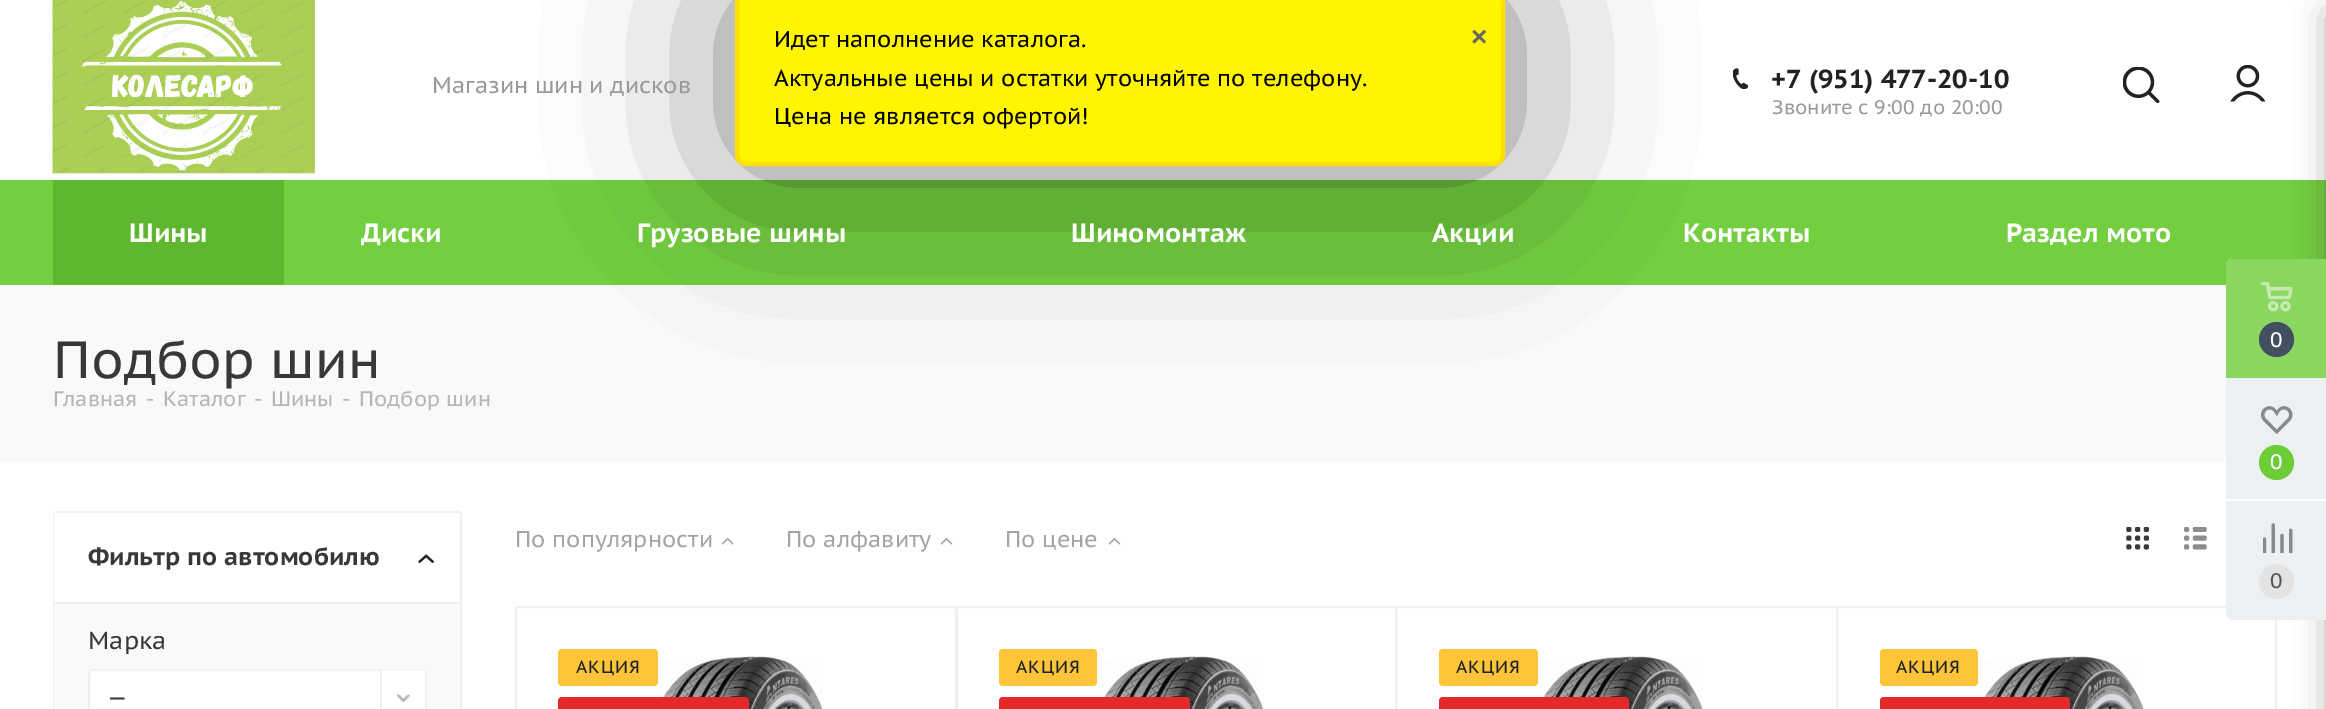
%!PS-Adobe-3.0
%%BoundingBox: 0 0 2326 709
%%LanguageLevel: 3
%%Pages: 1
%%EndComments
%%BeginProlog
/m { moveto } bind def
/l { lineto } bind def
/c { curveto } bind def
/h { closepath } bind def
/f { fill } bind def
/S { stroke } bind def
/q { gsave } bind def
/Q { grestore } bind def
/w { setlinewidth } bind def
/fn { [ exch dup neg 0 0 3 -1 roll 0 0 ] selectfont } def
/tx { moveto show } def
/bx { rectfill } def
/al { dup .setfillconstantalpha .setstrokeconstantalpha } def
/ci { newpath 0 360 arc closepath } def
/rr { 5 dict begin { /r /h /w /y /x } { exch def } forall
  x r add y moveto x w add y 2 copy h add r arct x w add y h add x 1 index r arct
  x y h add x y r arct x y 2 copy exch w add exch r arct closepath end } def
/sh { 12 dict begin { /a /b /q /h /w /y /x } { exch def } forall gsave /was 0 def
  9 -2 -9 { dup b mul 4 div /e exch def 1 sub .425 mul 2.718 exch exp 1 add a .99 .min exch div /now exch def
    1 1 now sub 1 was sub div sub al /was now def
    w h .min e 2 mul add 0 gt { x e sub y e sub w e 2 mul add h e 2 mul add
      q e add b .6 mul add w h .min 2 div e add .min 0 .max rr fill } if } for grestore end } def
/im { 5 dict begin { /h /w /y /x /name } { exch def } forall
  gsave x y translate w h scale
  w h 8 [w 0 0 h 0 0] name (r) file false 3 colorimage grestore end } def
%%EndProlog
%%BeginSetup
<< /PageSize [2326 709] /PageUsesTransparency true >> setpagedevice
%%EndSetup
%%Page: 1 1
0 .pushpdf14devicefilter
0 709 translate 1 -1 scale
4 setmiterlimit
1 setgray
0 0 2326 709 bx
(image1.raw) 1733 68 15 21 im
0.451 0.808 0.251 setrgbcolor
0 180 2326 105 bx
0.976 setgray
0 285 2226 177 bx
0 setgray
735 -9 770 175 11 87.5 0.5 sh
1 0.961 0 setrgbcolor
737 -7 766 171 9 rr q f Q
1 0.878 0 setrgbcolor
4 w
S
/PTSansCaption-Regular 22.75 fn
0 setgray
(Идет наполнение каталога.) 774 47 tx
(Актуальные цены и остатки уточняйте по телефону.) 774 86 tx
(Цена не является офертой!) 774 124 tx
/LiberationSans-Bold 28 fn
0.4 setgray
(×) 1471 46 tx
(image0.raw) 52 0 263 174 im
/PTSansCaption-Regular 22.75 fn
0.6 setgray
(Магазин шин и дисков) 432 93 tx
/PTSansCaption-Bold 26.1 fn
0.133 setgray
(+7 \(951\) 477-20-10) 1771 88 tx
/PTSansCaption-Regular 19.6 fn
0.6 setgray
(Звоните с 9:00 до 20:00) 1772 114 tx
(image2.raw) 2123 67 37 36 im
(image3.raw) 2230 65 36 37 im
0.373 0.714 0.184 setrgbcolor
53 180 231 105 bx
/PTSansCaption-Bold 26.25 fn
1 setgray
(Шины) 129 242 tx
(Диски) 361 242 tx
(Грузовые шины) 637 242 tx
(Шиномонтаж) 1071 242 tx
(Акции) 1432 242 tx
(Контакты) 1683 242 tx
(Раздел мото) 2006 242 tx
/PTSansCaption-Regular 52.25 fn
0.22 setgray
(Подбор шин) 53 378 tx
/PTSansCaption-Regular 21 fn
0.714 0.71 0.71 setrgbcolor
(Главная) 53 406 tx
(-) 146 406 tx
(Каталог) 163 406 tx
(-) 254 406 tx
(Шины) 271 406 tx
(-) 342 406 tx
(Подбор шин) 359 406 tx
0.941 setgray
2 w
54 512 407 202 3 rr S
1 setgray
54 513 406 89 bx
0.941 setgray
54 602 406 2 bx
/PTSansCaption-Bold 24.5 fn
0.22 setgray
(Фильтр по автомобилю) 88 565 tx
(image4.raw) 418 554 16 9 im
0.976 setgray
54 604 406 105 bx
/PTSansCaption-Regular 24.5 fn
0.22 setgray
(Марка) 88 649 tx
1 setgray
89 670 337 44 3 rr q f Q
0.941 setgray
S
/PTSansCaption-Regular 22.75 fn
0.22 setgray
(—) 107 705 tx
1 setgray
380 670 m 423 670 l 424 670 425 671 425 672 c 425 709 l 425 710 424 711 423 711 c 380 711 l h f
0.941 setgray
380 670 2 39 bx
(image5.raw) 397 694 13 8 im
0.647 0.639 0.639 setrgbcolor
(По популярности) 515 547 tx
(image6.raw) 722 537 12 8 im
(По алфавиту) 786 547 tx
(image7.raw) 940 537 13 8 im
(По цене) 1005 547 tx
(image7.raw) 1108 537 13 8 im
(image8.raw) 2126 527 23 23 im
(image9.raw) 2184 527 23 23 im
0.941 setgray
516 607 440 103 rectstroke
(image10.raw) 656 656 167 53 im
1 0.769 0.22 setrgbcolor
558 649 100 37 4 rr f
/PTSansCaption-Regular 17.5 fn
0.114 0.125 0.161 setrgbcolor
576 673 m 1 0 (АКЦИЯ) ashow
0.898 0.161 0.161 setrgbcolor
558 697 191 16 4 rr f
0.941 setgray
957 607 439 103 rectstroke
1 0.769 0.22 setrgbcolor
999 649 98 37 4 rr f
0.114 0.125 0.161 setrgbcolor
1016 673 m 1 0 (АКЦИЯ) ashow
(image10.raw) 1097 656 167 53 im
0.898 0.161 0.161 setrgbcolor
999 697 191 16 4 rr f
0.941 setgray
1396 607 441 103 rectstroke
(image11.raw) 1536 656 167 53 im
1 0.769 0.22 setrgbcolor
1439 649 99 37 4 rr f
0.114 0.125 0.161 setrgbcolor
1456 673 m 1 0 (АКЦИЯ) ashow
0.898 0.161 0.161 setrgbcolor
1439 697 190 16 4 rr f
0.941 setgray
1837 607 439 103 rectstroke
(image11.raw) 1977 656 167 53 im
1 0.769 0.22 setrgbcolor
1880 649 98 37 4 rr f
0.114 0.125 0.161 setrgbcolor
1896 673 m 1 0 (АКЦИЯ) ashow
0.898 0.161 0.161 setrgbcolor
1880 697 190 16 4 rr f
0.173 setgray
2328 11 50 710 4 16 0.4 sh
0.929 0.941 0.953 setrgbcolor
2233 259 m 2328 259 l 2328 620 l 2233 620 l 2229 620 2226 617 2226 613 c 2226 266 l 2226 262 2229 259 2233 259 c h f
0.545 0.839 0.376 setrgbcolor
2233 259 m 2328 259 l 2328 378 l 2226 378 l 2226 266 l 2226 262 2229 259 2233 259 c h f
(image12.raw) 2261 282 32 30 im
0.259 0.31 0.376 setrgbcolor
2276.5 339.5 17.5 ci f
/PTSansCaption-Regular 21 fn
1 setgray
(0) 2270 347 tx
(image13.raw) 2261 406 32 28 im
0.427 0.804 0.216 setrgbcolor
2276.5 462.5 17.5 ci f
1 setgray
(0) 2270 469 tx
2226 499 100 2 bx
(image14.raw) 2263 523 30 30 im
0.89 setgray
2276.5 581.5 17.5 ci f
0.333 setgray
(0) 2270 588 tx
.poppdf14devicefilter showpage
%%EOF
